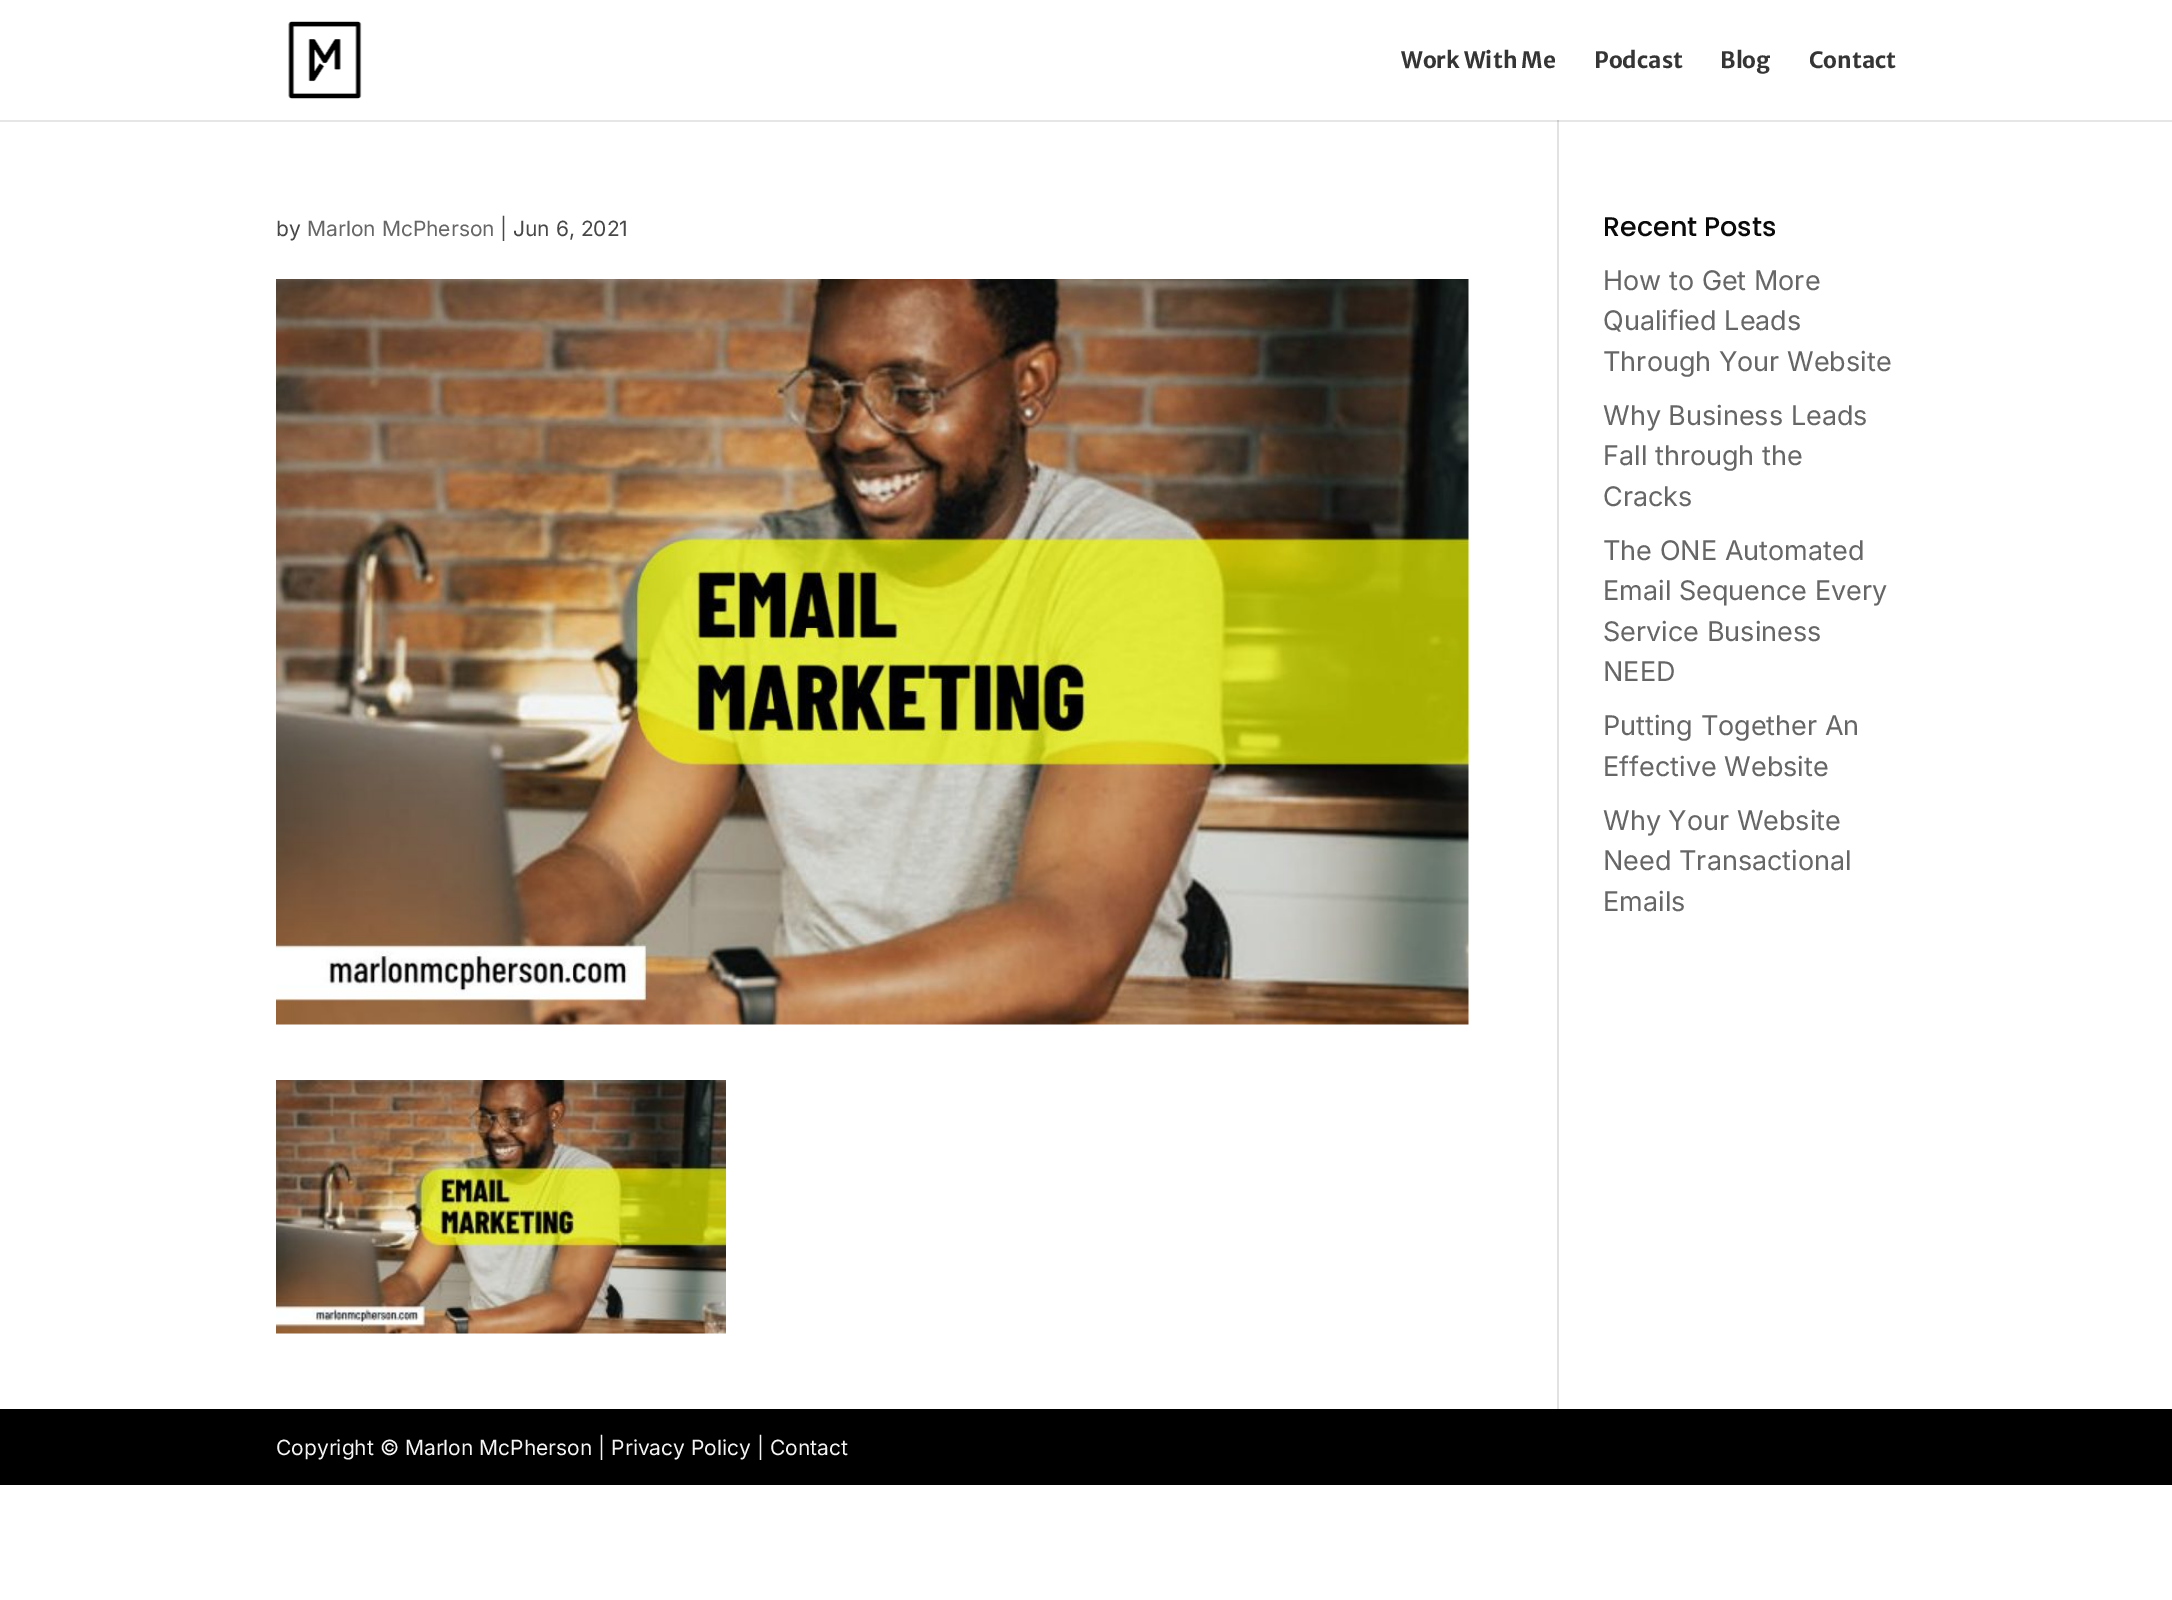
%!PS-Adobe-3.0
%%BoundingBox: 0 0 2172 1600
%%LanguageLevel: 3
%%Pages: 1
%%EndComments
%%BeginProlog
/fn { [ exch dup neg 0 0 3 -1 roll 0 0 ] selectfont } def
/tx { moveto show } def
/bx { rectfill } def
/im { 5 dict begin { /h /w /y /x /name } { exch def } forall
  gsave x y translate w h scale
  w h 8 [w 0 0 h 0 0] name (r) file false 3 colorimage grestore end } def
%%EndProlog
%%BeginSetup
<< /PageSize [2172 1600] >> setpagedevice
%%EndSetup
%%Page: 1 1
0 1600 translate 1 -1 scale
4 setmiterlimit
1 setgray
0 0 2172 1600 bx
0.902 setgray
0 120 2172 2 bx
(image0.raw) 288 21 74 78 im
/MerriweatherSans-Bold 22.5 fn
0.208 setgray
(Work With Me) 1401 68 tx
(Podcast) 1594 68 tx
(Blog) 1720 68 tx
(Contact) 1809 68 tx
0.886 setgray
1557 120 2 1289 bx
0.796 setgray
1557 120 2 2 bx
/Inter-Regular 21 fn
0.278 setgray
(by) 276 236 tx
0.4 setgray
(Marlon McPherson) 307 236 tx
0.278 setgray
(| Jun 6, 2021) 500 236 tx
(image1.raw) 276 279 1193 746 im
(image2.raw) 276 1080 450 254 im
/Poppins-Medium 27 fn
0.039 setgray
(Recent Posts) 1603 236 tx
/Inter-Regular 27 fn
0.4 setgray
(How to Get More) 1603 290 tx
(Qualified Leads) 1603 330 tx
(Through Your Website) 1603 371 tx
(Why Business Leads) 1603 425 tx
(Fall through the) 1603 465 tx
(Cracks) 1603 506 tx
(The ONE Automated) 1603 560 tx
(Email Sequence Every) 1603 600 tx
(Service Business) 1603 641 tx
(NEED) 1603 681 tx
(Putting Together An) 1603 735 tx
(Effective Website) 1603 776 tx
(Why Your Website) 1603 830 tx
(Need Transactional) 1603 870 tx
(Emails) 1603 911 tx
0 setgray
0 1409 2172 76 bx
/Inter-Regular 21 fn
0.957 setgray
(Copyright © Marlon McPherson | Privacy Policy | Contact) 276 1455 tx
showpage
%%EOF
